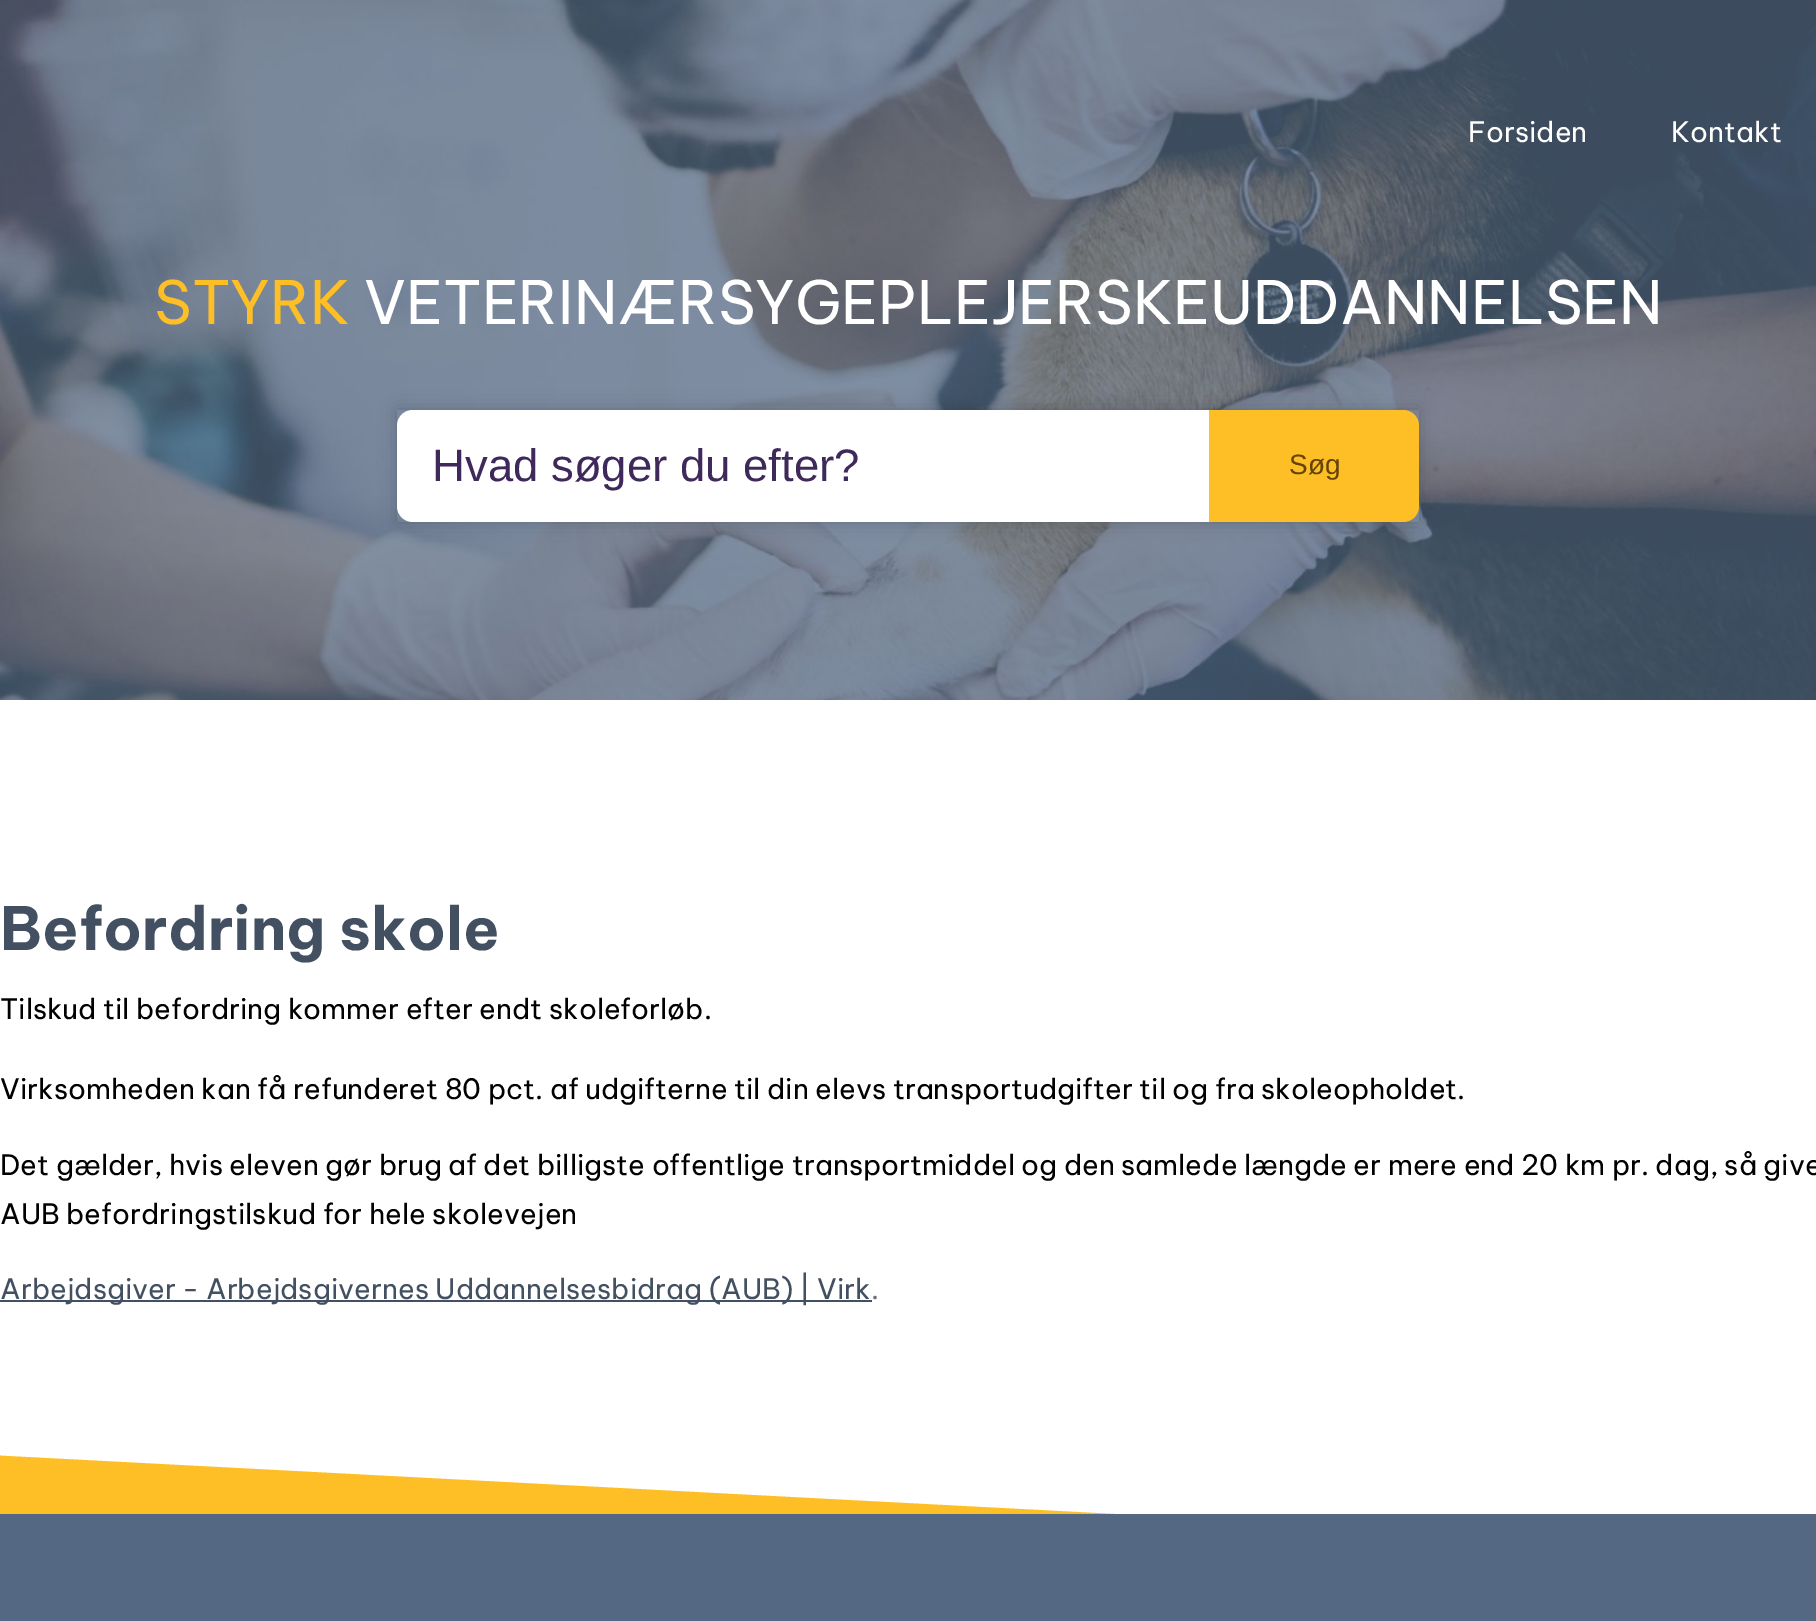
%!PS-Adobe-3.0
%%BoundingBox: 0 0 1816 1621
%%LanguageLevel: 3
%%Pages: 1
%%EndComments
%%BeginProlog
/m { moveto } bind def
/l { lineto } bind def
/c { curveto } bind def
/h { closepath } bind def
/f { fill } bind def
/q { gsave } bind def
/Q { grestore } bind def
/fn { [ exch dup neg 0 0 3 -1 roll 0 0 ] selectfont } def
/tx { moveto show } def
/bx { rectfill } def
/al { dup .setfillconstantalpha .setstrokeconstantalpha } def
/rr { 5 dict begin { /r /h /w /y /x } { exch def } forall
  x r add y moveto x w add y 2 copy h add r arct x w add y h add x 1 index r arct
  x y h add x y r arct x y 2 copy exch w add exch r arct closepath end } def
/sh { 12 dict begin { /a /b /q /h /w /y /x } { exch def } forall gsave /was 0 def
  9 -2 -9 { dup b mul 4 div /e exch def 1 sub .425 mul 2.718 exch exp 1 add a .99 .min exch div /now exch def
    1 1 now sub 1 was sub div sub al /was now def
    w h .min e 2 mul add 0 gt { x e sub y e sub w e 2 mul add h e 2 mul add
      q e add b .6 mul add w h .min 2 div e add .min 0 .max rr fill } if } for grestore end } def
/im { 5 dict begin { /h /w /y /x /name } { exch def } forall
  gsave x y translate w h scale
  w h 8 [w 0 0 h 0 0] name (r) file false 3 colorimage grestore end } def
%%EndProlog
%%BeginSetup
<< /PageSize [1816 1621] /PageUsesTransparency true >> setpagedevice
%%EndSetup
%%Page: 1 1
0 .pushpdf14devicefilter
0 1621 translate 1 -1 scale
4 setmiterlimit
1 setgray
0 0 1816 1621 bx
0.329 0.408 0.514 setrgbcolor
0 0 1816 700 bx
(image0.raw) 0 0 1816 700 im
/BeVietnamPro-Regular 28 fn
1 setgray
(Forsiden) 1468 142 tx
(Kontakt) 1671 142 tx
/BeVietnamPro-Regular 59.5 fn
0.992 0.745 0.149 setrgbcolor
(STYRK) 154 324 tx
1 setgray
(VETERINÆRSYGEPLEJERSKEUDDANNELSEN) 364 324 tx
q
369 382 m 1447 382 l 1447 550 l 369 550 l h 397 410 m 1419 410 l 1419 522 l 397 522 l h eoclip newpath
0 setgray
397 410 1022 112 0 9 0.2 sh
Q
413 410 m 1209 410 l 1209 522 l 413 522 l 404 522 397 515 397 506 c 397 426 l 397 417 404 410 413 410 c h f
/LiberationSans-Regular 45.5 fn
0.247 0.157 0.353 setrgbcolor
(Hvad søger du efter?) 432 481 tx
0.992 0.745 0.149 setrgbcolor
1209 410 m 1403 410 l 1412 410 1419 417 1419 426 c 1419 506 l 1419 515 1412 522 1403 522 c 1209 522 l h f
/LiberationSans-Regular 28 fn
0.392 0.263 0.016 setrgbcolor
(Søg) 1289 474 tx
/BeVietnamPro-Bold 59.5 fn
0.263 0.314 0.38 setrgbcolor
(Befordring skole) 0 950 tx
/BeVietnamPro-Regular 28 fn
0 setgray
(Tilskud til befordring kommer efter endt skoleforløb.) 0 1019 tx
(Virksomheden kan få refunderet 80 pct. af udgifterne til din elevs transportudgifter til og fra skoleopholdet.) 0 1099 tx
(Det gælder, hvis eleven gør brug af det billigste offentlige transportmiddel og den samlede længde er mere end 20 km pr. dag, så give) 0 1175 tx
(AUB befordringstilskud for hele skolevejen) 0 1224 tx
0.263 0.314 0.38 setrgbcolor
0 1300 872 2 bx
(Arbejdsgiver - Arbejdsgivernes Uddannelsesbidrag \(AUB\) | Virk) 0 1299 tx
0.439 setgray
(.) 871 1299 tx
0.992 0.745 0.149 setrgbcolor
-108 1450 m 1344 1526 l 1316 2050 l -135 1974 l h f
0.329 0.408 0.514 setrgbcolor
0 1514 1816 107 bx
.poppdf14devicefilter showpage
%%EOF
